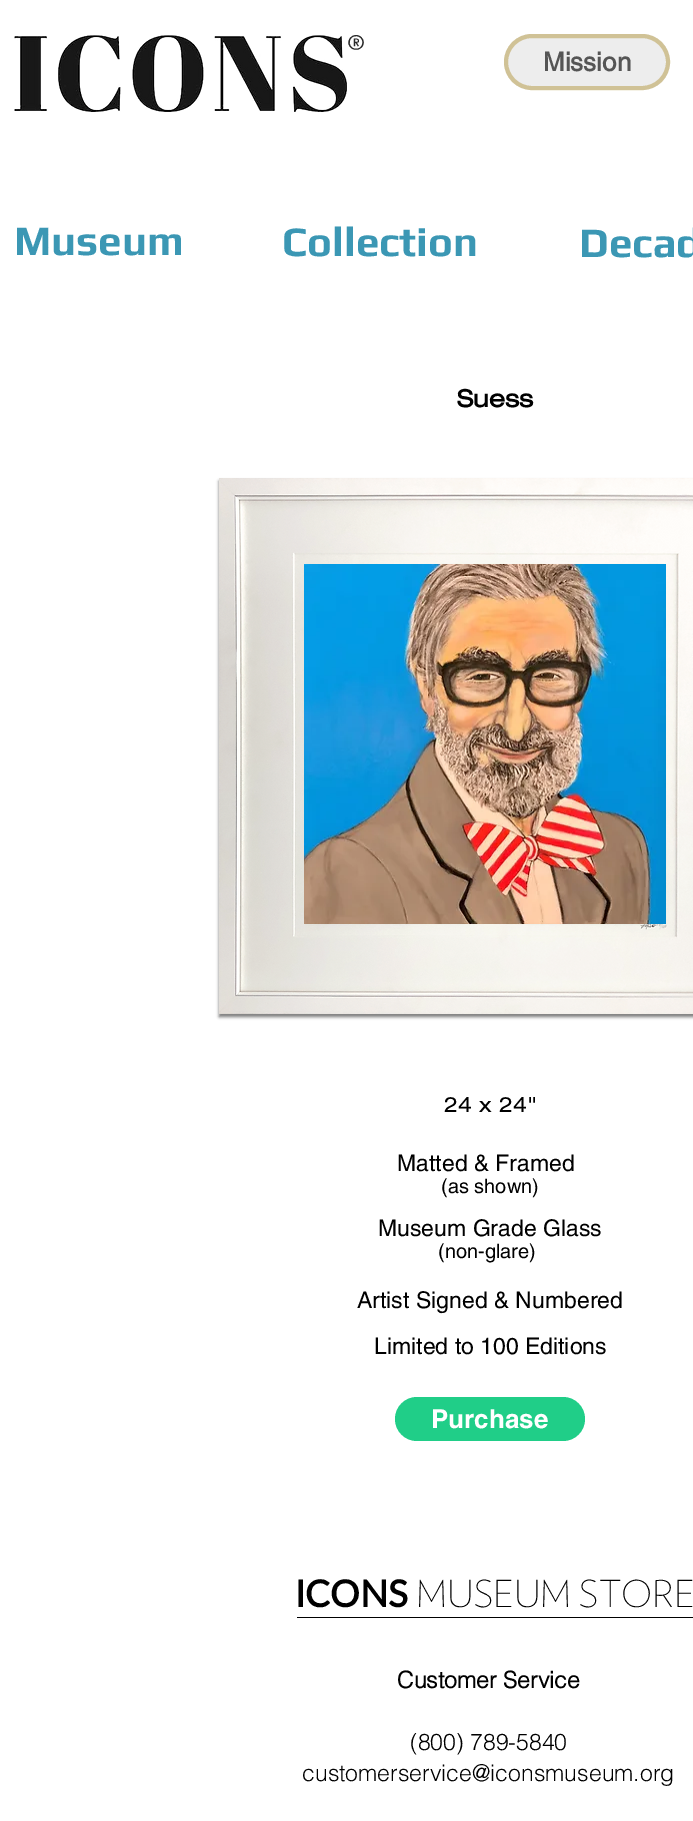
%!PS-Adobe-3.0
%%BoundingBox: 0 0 693 1821
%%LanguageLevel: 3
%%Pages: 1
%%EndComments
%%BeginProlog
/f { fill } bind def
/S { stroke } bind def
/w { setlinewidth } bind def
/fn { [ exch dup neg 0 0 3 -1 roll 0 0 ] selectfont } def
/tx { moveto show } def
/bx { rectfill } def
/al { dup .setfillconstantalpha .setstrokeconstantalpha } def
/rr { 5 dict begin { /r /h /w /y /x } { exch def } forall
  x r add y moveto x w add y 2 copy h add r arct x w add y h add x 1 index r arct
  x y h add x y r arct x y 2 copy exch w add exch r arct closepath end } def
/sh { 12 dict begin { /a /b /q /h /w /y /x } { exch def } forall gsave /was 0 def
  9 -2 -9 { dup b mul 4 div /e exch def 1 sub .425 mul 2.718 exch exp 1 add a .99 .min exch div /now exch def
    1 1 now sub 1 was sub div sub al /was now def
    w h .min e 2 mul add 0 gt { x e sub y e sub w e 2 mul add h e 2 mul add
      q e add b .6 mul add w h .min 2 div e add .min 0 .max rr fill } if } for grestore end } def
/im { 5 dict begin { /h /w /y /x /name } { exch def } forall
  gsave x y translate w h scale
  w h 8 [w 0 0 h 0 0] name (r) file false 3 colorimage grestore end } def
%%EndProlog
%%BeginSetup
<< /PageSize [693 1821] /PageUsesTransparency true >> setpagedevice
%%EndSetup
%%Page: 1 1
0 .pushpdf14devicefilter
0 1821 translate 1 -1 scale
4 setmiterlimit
1 setgray
0 0 693 1821 bx
(image0.raw) 14 35 333 77 im
/Nobile-Regular 27 fn
0.165 setgray
(®) 347 57 tx
0.929 setgray
504 34 166 56 28 rr f
0.43 al
0.667 0.537 0.141 setrgbcolor
4 w
506 36 162 52 26 rr S
/helvetica-Bold 26 fn
1 al
0.333 setgray
(Mission) 543 71 tx
/Play-Bold 42 fn
0.231 0.592 0.706 setrgbcolor
(Museum) 14 255 tx
(Collection) 282 256 tx
(Decad) 579 257 tx
/HelveticaNeue-Bold 24 fn
0 setgray
(Suess) 457 407 tx
219 481 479 536 0 1.5 0.5 sh
(image1.raw) 219 478 474 536 im
(image2.raw) 304 564 362 360 im
/HelveticaNeue-Medium 21 fn
(24 x 24") 444 1112 tx
/helvetica-Regular 23 fn
(Matted & Framed) 397 1171 tx
/helvetica-Regular 20 fn
(\(as shown\)) 441 1193 tx
/helvetica-Regular 23 fn
(Museum Grade Glass) 378 1236 tx
/helvetica-Regular 20 fn
(\(non-glare\)) 438 1258 tx
/helvetica-Regular 23 fn
(Artist Signed & Numbered) 357 1308 tx
(Limited to 100 Editions) 374 1354 tx
0.125 0.808 0.533 setrgbcolor
395 1397 190 44 22 rr f
/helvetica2-Bold 26 fn
1 setgray
(Purchase) 431 1428 tx
/Lato-Bold 37 fn
0 setgray
(ICONS) 295 1607 tx
/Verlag-Light 37 fn
(MUSEUM STORE) 416 1607 tx
297 1617 396 1 bx
/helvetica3-Bold 23 fn
(Customer Service) 397 1688 tx
/helvetica-Light 23 fn
(\(800\) 789-5840) 410 1750 tx
(customerservice@iconsmuseum.org) 302 1781 tx
.poppdf14devicefilter showpage
%%EOF
